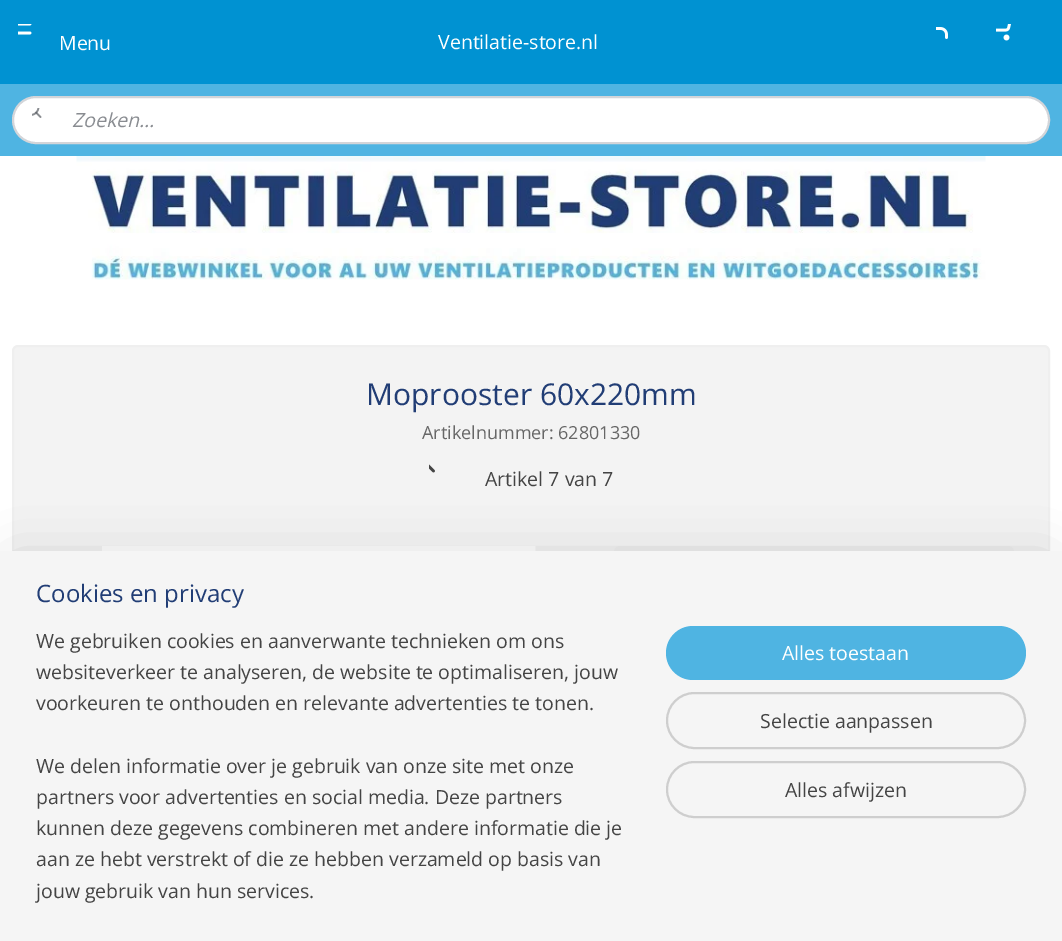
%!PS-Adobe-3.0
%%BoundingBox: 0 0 1062 941
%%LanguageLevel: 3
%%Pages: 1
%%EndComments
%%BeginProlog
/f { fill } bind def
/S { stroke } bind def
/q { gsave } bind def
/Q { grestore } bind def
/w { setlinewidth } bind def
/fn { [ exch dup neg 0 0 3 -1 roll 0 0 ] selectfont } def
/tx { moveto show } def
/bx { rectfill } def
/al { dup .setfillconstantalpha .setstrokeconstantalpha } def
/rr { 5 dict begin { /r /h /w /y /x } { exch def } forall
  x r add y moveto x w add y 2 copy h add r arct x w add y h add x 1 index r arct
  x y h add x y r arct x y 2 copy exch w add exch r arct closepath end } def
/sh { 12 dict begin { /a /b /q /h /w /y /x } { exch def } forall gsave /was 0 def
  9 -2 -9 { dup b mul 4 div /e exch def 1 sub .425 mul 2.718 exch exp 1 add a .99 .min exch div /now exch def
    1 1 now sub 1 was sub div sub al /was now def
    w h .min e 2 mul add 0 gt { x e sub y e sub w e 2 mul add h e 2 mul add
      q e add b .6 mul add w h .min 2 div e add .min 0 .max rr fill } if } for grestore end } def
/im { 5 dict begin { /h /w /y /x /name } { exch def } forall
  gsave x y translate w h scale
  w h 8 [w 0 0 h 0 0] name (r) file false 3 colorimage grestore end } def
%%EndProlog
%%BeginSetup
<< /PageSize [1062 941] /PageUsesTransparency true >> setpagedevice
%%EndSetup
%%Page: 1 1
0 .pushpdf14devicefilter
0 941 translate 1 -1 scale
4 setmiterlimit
1 setgray
0 0 1062 941 bx
0 0.573 0.824 setrgbcolor
0 0 1062 84 bx
(image0.raw) 18 24 14 11 im
/OpenSans-Regular 19.5 fn
1 1 0.996 setrgbcolor
(Menu) 59 50 tx
(Ventilatie-store.nl) 438 49 tx
(image1.raw) 936 27 12 12 im
(image2.raw) 996 24 15 17 im
0.31 0.706 0.886 setrgbcolor
0 84 1062 72 bx
1 setgray
13 97 1036 46 23 rr q f Q
0.827 0.835 0.851 setrgbcolor
2 w
S
(image3.raw) 32 108 10 10 im
/OpenSans-Italic 19.5 fn
0.537 0.549 0.569 setrgbcolor
(Zoeken...) 72 127 tx
(image4.raw) 76 156 910 124 im
0.953 setgray
13 346 1036 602 5 rr q f Q
0.937 setgray
S
/OpenSans-Regular 30 fn
0.129 0.239 0.459 setrgbcolor
(Moprooster 60x220mm) 366 405 tx
/OpenSans-Regular 18 fn
0.404 setgray
(Artikelnummer: 62801330) 422 439 tx
(image5.raw) 429 464 6 9 im
/OpenSans-Regular 19.5 fn
0.267 setgray
(Artikel 7 van 7) 485 486 tx
(image6.raw) 102 546 434 5 im
0.937 setgray
614 546 400 302 6 rr f
0 setgray
15 566 1032 361 0 27 0.2 sh
0.961 setgray
0 551 1062 390 bx
/OpenSans-Regular 24 fn
0.129 0.239 0.459 setrgbcolor
(Cookies en privacy) 36 602 tx
/OpenSans-Regular 19.5 fn
0.267 setgray
(We gebruiken cookies en aanverwante technieken om ons) 36 648 tx
(websiteverkeer te analyseren, de website te optimaliseren, jouw) 36 679 tx
(voorkeuren te onthouden en relevante advertenties te tonen.) 36 710 tx
(We delen informatie over je gebruik van onze site met onze) 36 773 tx
(partners voor advertenties en social media. Deze partners) 36 804 tx
(kunnen deze gegevens combineren met andere informatie die je) 36 835 tx
(aan ze hebt verstrekt of die ze hebben verzameld op basis van) 36 866 tx
(jouw gebruik van hun services.) 36 898 tx
0.31 0.706 0.886 setrgbcolor
666 626 360 54 27 rr f
1 1 0.996 setrgbcolor
(Alles toestaan) 782 660 tx
0.808 setgray
667 693 358 55 27.5 rr S
0.267 setgray
(Selectie aanpassen) 760 728 tx
0.808 setgray
667 762 358 55 27.5 rr S
0.267 setgray
(Alles afwijzen) 785 797 tx
.poppdf14devicefilter showpage
%%EOF
